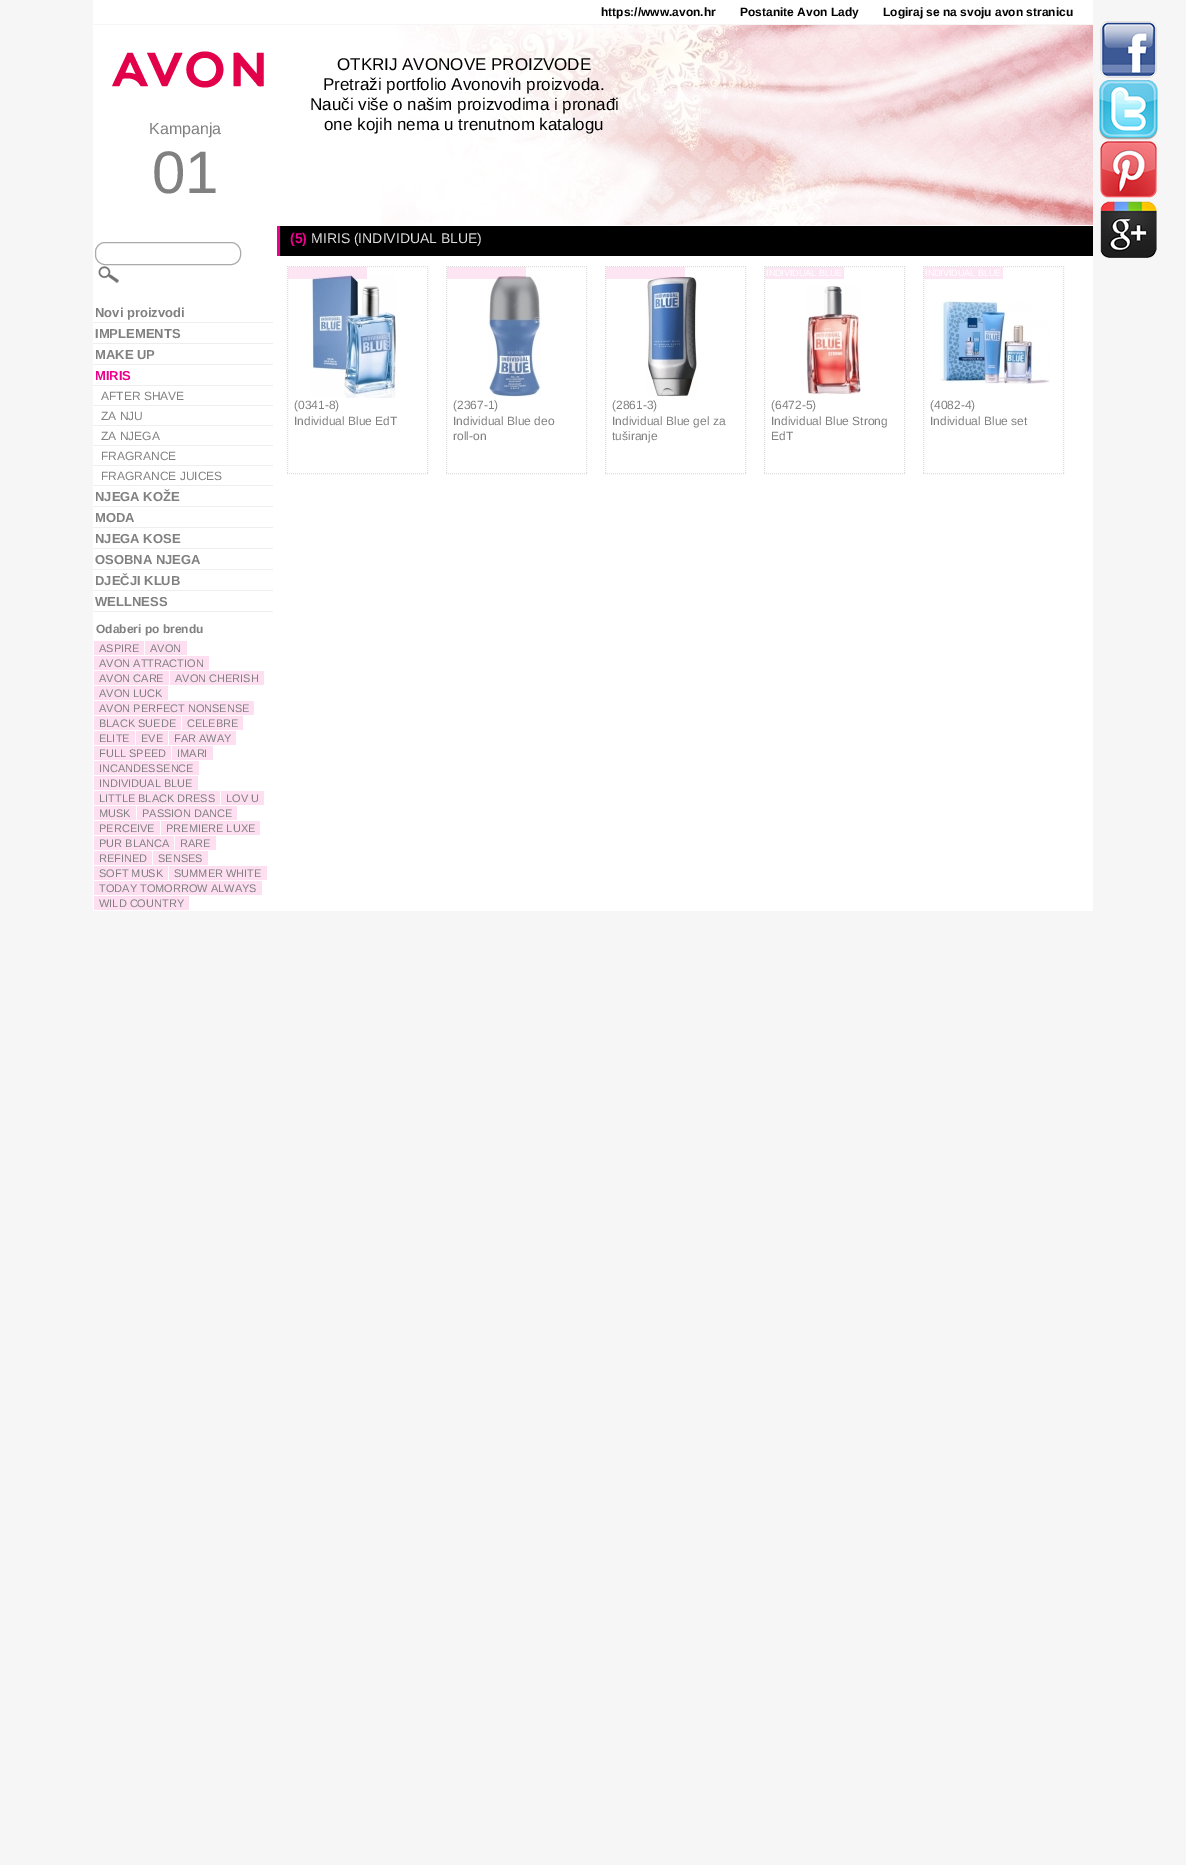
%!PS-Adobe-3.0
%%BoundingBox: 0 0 1186 1865
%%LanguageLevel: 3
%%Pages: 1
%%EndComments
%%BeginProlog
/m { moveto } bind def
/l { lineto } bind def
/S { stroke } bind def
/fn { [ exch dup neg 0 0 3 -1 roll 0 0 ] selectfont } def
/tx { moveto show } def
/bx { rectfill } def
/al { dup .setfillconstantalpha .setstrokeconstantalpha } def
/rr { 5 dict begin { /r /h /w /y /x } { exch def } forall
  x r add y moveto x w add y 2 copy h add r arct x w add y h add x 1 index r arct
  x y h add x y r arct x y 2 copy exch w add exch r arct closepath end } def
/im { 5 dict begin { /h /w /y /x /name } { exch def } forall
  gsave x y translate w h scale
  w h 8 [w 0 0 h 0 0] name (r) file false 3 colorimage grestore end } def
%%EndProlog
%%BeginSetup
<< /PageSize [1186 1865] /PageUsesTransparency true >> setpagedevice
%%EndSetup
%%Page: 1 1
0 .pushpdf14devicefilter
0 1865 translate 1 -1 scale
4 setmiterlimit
0.969 0.965 0.969 setrgbcolor
0 0 1186 1865 bx
1 setgray
93 0 1000 911 bx
0.969 0.965 0.969 setrgbcolor
93 24 1000 1 bx
/LiberationSans-Bold 12 fn
0 setgray
(https://www.avon.hr) 601 16 tx
(Postanite Avon Lady) 740 16 tx
(Logiraj se na svoju avon stranicu) 883 16 tx
(image0.raw) 381 25 712 200 im
/LiberationSans-Regular 17 fn
(OTKRIJ AVONOVE PROIZVODE) 337 70 tx
(Pretraži portfolio Avonovih proizvoda.) 323 90 tx
(Nauči više o našim proizvodima i pronađi) 310 110 tx
(one kojih nema u trenutnom katalogu) 324 130 tx
(image1.raw) 112 51 152 37 im
/LiberationSans-Regular 16 fn
0.502 setgray
(Kampanja) 149 134 tx
/LiberationSans-Regular 60 fn
(01) 152 193 tx
(image2.raw) 1100 21 57 57 im
(image3.raw) 1099 80 59 60 im
(image4.raw) 1100 141 57 57 im
(image5.raw) 1100 201 57 57 im
0.667 setgray
95.5 242.5 145 22 9.5 rr S
(image6.raw) 98 266 21 17 im
0.933 setgray
93 322 180 1 bx
/LiberationSans-Bold 13 fn
0.502 setgray
(Novi proizvodi) 95 317 tx
0.933 setgray
93 343 180 1 bx
0.502 setgray
(IMPLEMENTS) 95 338 tx
0.933 setgray
93 364 180 1 bx
0.502 setgray
(MAKE UP) 95 359 tx
0.933 setgray
93 385 180 1 bx
0.925 0 0.549 setrgbcolor
(MIRIS) 95 380 tx
0.933 setgray
93 405 180 1 bx
/LiberationSans-Regular 12 fn
0.502 setgray
(AFTER SHAVE) 101 400 tx
0.933 setgray
93 425 180 1 bx
0.502 setgray
(ZA NJU) 101 420 tx
0.933 setgray
93 445 180 1 bx
0.502 setgray
(ZA NJEGA) 101 440 tx
0.933 setgray
93 465 180 1 bx
0.502 setgray
(FRAGRANCE) 101 460 tx
0.933 setgray
93 485 180 1 bx
0.502 setgray
(FRAGRANCE JUICES) 101 480 tx
0.933 setgray
93 506 180 1 bx
/LiberationSans-Bold 13 fn
0.502 setgray
(NJEGA KOŽE) 95 501 tx
0.933 setgray
93 527 180 1 bx
0.502 setgray
(MODA) 95 522 tx
0.933 setgray
93 548 180 1 bx
0.502 setgray
(NJEGA KOSE) 95 543 tx
0.933 setgray
93 569 180 1 bx
0.502 setgray
(OSOBNA NJEGA) 95 564 tx
0.933 setgray
93 590 180 1 bx
0.502 setgray
(DJEČJI KLUB) 95 585 tx
0.933 setgray
93 611 180 1 bx
0.502 setgray
(WELLNESS) 95 606 tx
/LiberationSans-Bold 12 fn
(Odaberi po brendu) 96 633 tx
0.992 0.875 0.945 setrgbcolor
94 641 50 14 bx
/LiberationSans-Regular 11 fn
0.502 setgray
(ASPIRE) 99 652 tx
0.992 0.875 0.945 setrgbcolor
145 641 42 14 bx
0.502 setgray
(AVON) 150 652 tx
0.992 0.875 0.945 setrgbcolor
94 656 115 14 bx
0.502 setgray
(AVON ATTRACTION) 99 667 tx
0.992 0.875 0.945 setrgbcolor
94 671 75 14 bx
0.502 setgray
(AVON CARE) 99 682 tx
0.992 0.875 0.945 setrgbcolor
170 671 94 14 bx
0.502 setgray
(AVON CHERISH) 175 682 tx
0.992 0.875 0.945 setrgbcolor
94 686 74 14 bx
0.502 setgray
(AVON LUCK) 99 697 tx
0.992 0.875 0.945 setrgbcolor
94 701 160 14 bx
0.502 setgray
(AVON PERFECT NONSENSE) 99 712 tx
0.992 0.875 0.945 setrgbcolor
94 716 87 14 bx
0.502 setgray
(BLACK SUEDE) 99 727 tx
0.992 0.875 0.945 setrgbcolor
182 716 61 14 bx
0.502 setgray
(CELEBRE) 187 727 tx
0.992 0.875 0.945 setrgbcolor
94 731 41 14 bx
0.502 setgray
(ELITE) 99 742 tx
0.992 0.875 0.945 setrgbcolor
136 731 32 14 bx
0.502 setgray
(EVE) 141 742 tx
0.992 0.875 0.945 setrgbcolor
169 731 67 14 bx
0.502 setgray
(FAR AWAY) 174 742 tx
0.992 0.875 0.945 setrgbcolor
94 746 77 14 bx
0.502 setgray
(FULL SPEED) 99 757 tx
0.992 0.875 0.945 setrgbcolor
172 746 41 14 bx
0.502 setgray
(IMARI) 177 757 tx
0.992 0.875 0.945 setrgbcolor
94 761 105 14 bx
0.502 setgray
(INCANDESSENCE) 99 772 tx
0.992 0.875 0.945 setrgbcolor
94 776 104 14 bx
0.502 setgray
(INDIVIDUAL BLUE) 99 787 tx
0.992 0.875 0.945 setrgbcolor
94 791 126 14 bx
0.502 setgray
(LITTLE BLACK DRESS) 99 802 tx
0.992 0.875 0.945 setrgbcolor
221 791 43 14 bx
0.502 setgray
(LOV U) 226 802 tx
0.992 0.875 0.945 setrgbcolor
94 806 42 14 bx
0.502 setgray
(MUSK) 99 817 tx
0.992 0.875 0.945 setrgbcolor
137 806 100 14 bx
0.502 setgray
(PASSION DANCE) 142 817 tx
0.992 0.875 0.945 setrgbcolor
94 821 66 14 bx
0.502 setgray
(PERCEIVE) 99 832 tx
0.992 0.875 0.945 setrgbcolor
161 821 99 14 bx
0.502 setgray
(PREMIERE LUXE) 166 832 tx
0.992 0.875 0.945 setrgbcolor
94 836 80 14 bx
0.502 setgray
(PUR BLANCA) 99 847 tx
0.992 0.875 0.945 setrgbcolor
175 836 41 14 bx
0.502 setgray
(RARE) 180 847 tx
0.992 0.875 0.945 setrgbcolor
94 851 58 14 bx
0.502 setgray
(REFINED) 99 862 tx
0.992 0.875 0.945 setrgbcolor
153 851 55 14 bx
0.502 setgray
(SENSES) 158 862 tx
0.992 0.875 0.945 setrgbcolor
94 866 74 14 bx
0.502 setgray
(SOFT MUSK) 99 877 tx
0.992 0.875 0.945 setrgbcolor
169 866 98 14 bx
0.502 setgray
(SUMMER WHITE) 174 877 tx
0.992 0.875 0.945 setrgbcolor
94 881 168 14 bx
0.502 setgray
(TODAY TOMORROW ALWAYS) 99 892 tx
0.992 0.875 0.945 setrgbcolor
94 896 95 14 bx
0.502 setgray
(WILD COUNTRY) 99 907 tx
0 setgray
280 226 813 30 bx
0.925 0 0.549 setrgbcolor
277 226 3 30 bx
/LiberationSans-Bold 14 fn
(\(5\)) 290 243 tx
/LiberationSans-Regular 14 fn
0.867 setgray
(MIRIS \(INDIVIDUAL BLUE\)) 311 243 tx
(image7.raw) 311 274 85 124 im
0.1 al
0.925 0 0.549 setrgbcolor
288 267 79 12 bx
1 al
0.867 setgray
[1 1] 0 setdash
287 266.5 m 428 266.5 l S
427.5 266 m 427.5 474 l S
287 473.5 m 428 473.5 l S
287.5 266 m 287.5 474 l S
/LiberationSans-Regular 12 fn
0.502 setgray
(\(0341-8\)) 294 409 tx
(Individual Blue EdT) 294 425 tx
(image8.raw) 488 276 53 121 im
0.1 al
0.925 0 0.549 setrgbcolor
447 267 79 12 bx
1 al
0.867 setgray
446 266.5 m 587 266.5 l S
586.5 266 m 586.5 474 l S
446 473.5 m 587 473.5 l S
446.5 266 m 446.5 474 l S
0.502 setgray
(\(2367-1\)) 453 409 tx
(Individual Blue deo) 453 425 tx
(roll-on) 453 440 tx
(image9.raw) 647 276 50 121 im
0.1 al
0.925 0 0.549 setrgbcolor
606 267 79 12 bx
1 al
0.867 setgray
605 266.5 m 746 266.5 l S
745.5 266 m 745.5 474 l S
605 473.5 m 746 473.5 l S
605.5 266 m 605.5 474 l S
0.502 setgray
(\(2861-3\)) 612 409 tx
(Individual Blue gel za) 612 425 tx
(tuširanje) 612 440 tx
0.992 0.902 0.957 setrgbcolor
765 267 79 12 bx
/LiberationSans-Regular 9 fn
1 setgray
(INDIVIDUAL BLUE) 766 276 tx
0.867 setgray
764 266.5 m 905 266.5 l S
904.5 266 m 904.5 474 l S
764 473.5 m 905 473.5 l S
764.5 266 m 764.5 474 l S
(image10.raw) 806 286 55 109 im
/LiberationSans-Regular 12 fn
0.502 setgray
(\(6472-5\)) 771 409 tx
(Individual Blue Strong) 771 425 tx
(EdT) 771 440 tx
0.992 0.902 0.957 setrgbcolor
924 267 79 12 bx
/LiberationSans-Regular 9 fn
1 setgray
(INDIVIDUAL BLUE) 925 276 tx
0.867 setgray
923 266.5 m 1064 266.5 l S
1063.5 266 m 1063.5 474 l S
923 473.5 m 1064 473.5 l S
923.5 266 m 923.5 474 l S
(image11.raw) 940 300 110 84 im
/LiberationSans-Regular 12 fn
0.502 setgray
(\(4082-4\)) 930 409 tx
(Individual Blue set) 930 425 tx
.poppdf14devicefilter showpage
%%EOF
